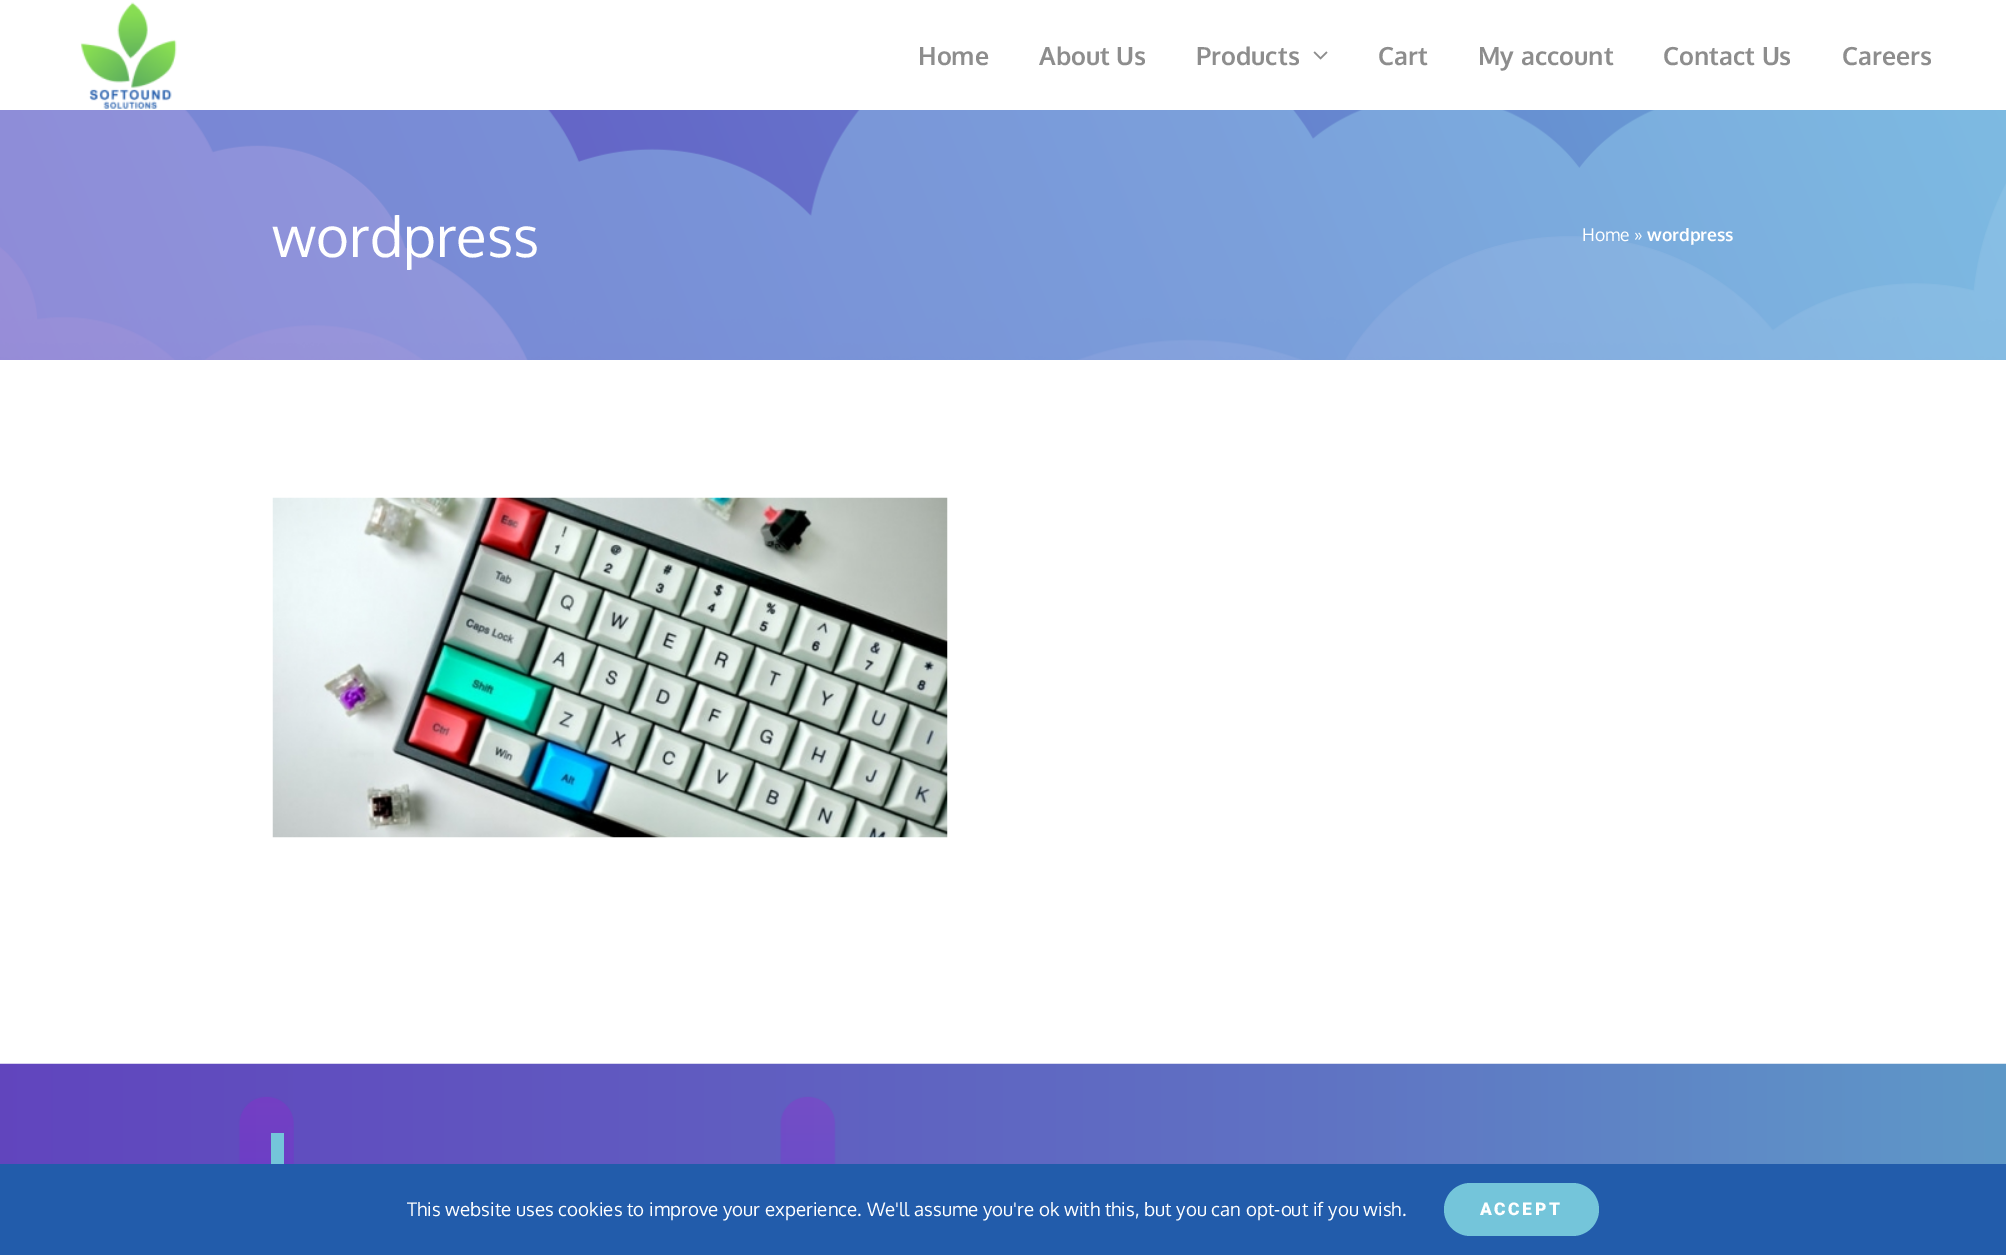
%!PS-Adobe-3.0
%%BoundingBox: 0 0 2006 1255
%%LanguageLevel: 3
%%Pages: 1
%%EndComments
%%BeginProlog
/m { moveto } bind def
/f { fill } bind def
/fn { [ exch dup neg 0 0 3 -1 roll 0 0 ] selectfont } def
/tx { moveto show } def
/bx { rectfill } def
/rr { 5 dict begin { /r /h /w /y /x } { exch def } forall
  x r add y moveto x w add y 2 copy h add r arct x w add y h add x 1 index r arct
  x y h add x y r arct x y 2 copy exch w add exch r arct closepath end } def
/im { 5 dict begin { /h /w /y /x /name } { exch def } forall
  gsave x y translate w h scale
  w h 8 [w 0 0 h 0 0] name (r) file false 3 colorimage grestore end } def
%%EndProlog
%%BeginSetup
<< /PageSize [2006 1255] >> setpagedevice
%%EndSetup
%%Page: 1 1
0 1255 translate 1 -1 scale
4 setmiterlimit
1 setgray
0 0 2006 1255 bx
(image0.raw) 80 2 97 107 im
/Oxygen-Bold 25 fn
0.553 setgray
(Home) 918 65 tx
(About Us) 1039 65 tx
(Products) 1196 65 tx
(image1.raw) 1313 51 15 9 im
(Cart) 1378 65 tx
(My account) 1478 65 tx
(Contact Us) 1663 65 tx
(Careers) 1842 65 tx
(image2.raw) 0 110 2006 250 im
/Oxygen-Regular 56.25 fn
1 setgray
(wordpress) 272 257 tx
/Oxygen-Regular 17.5 fn
(Home ») 1582 241 tx
/Oxygen-Bold 17.5 fn
(wordpress) 1647 241 tx
(image3.raw) 272 497 676 341 im
(image4.raw) 0 1063 2006 101 im
0.455 0.773 0.855 setrgbcolor
271 1133 13 31 bx
0.133 0.361 0.671 setrgbcolor
0 1164 2006 91 bx
/Oxygen-Regular 18.75 fn
1 setgray
(This website uses cookies to improve your experience. We'll assume you're ok with this, but you can opt-out if you wish.) 407 1216 tx
0.455 0.773 0.855 setrgbcolor
1444 1183 155 53 26.5 rr f
/Roboto-Black 17.5 fn
1 setgray
1480 1215 m 2.5 0 (ACCEPT) ashow
showpage
%%EOF
